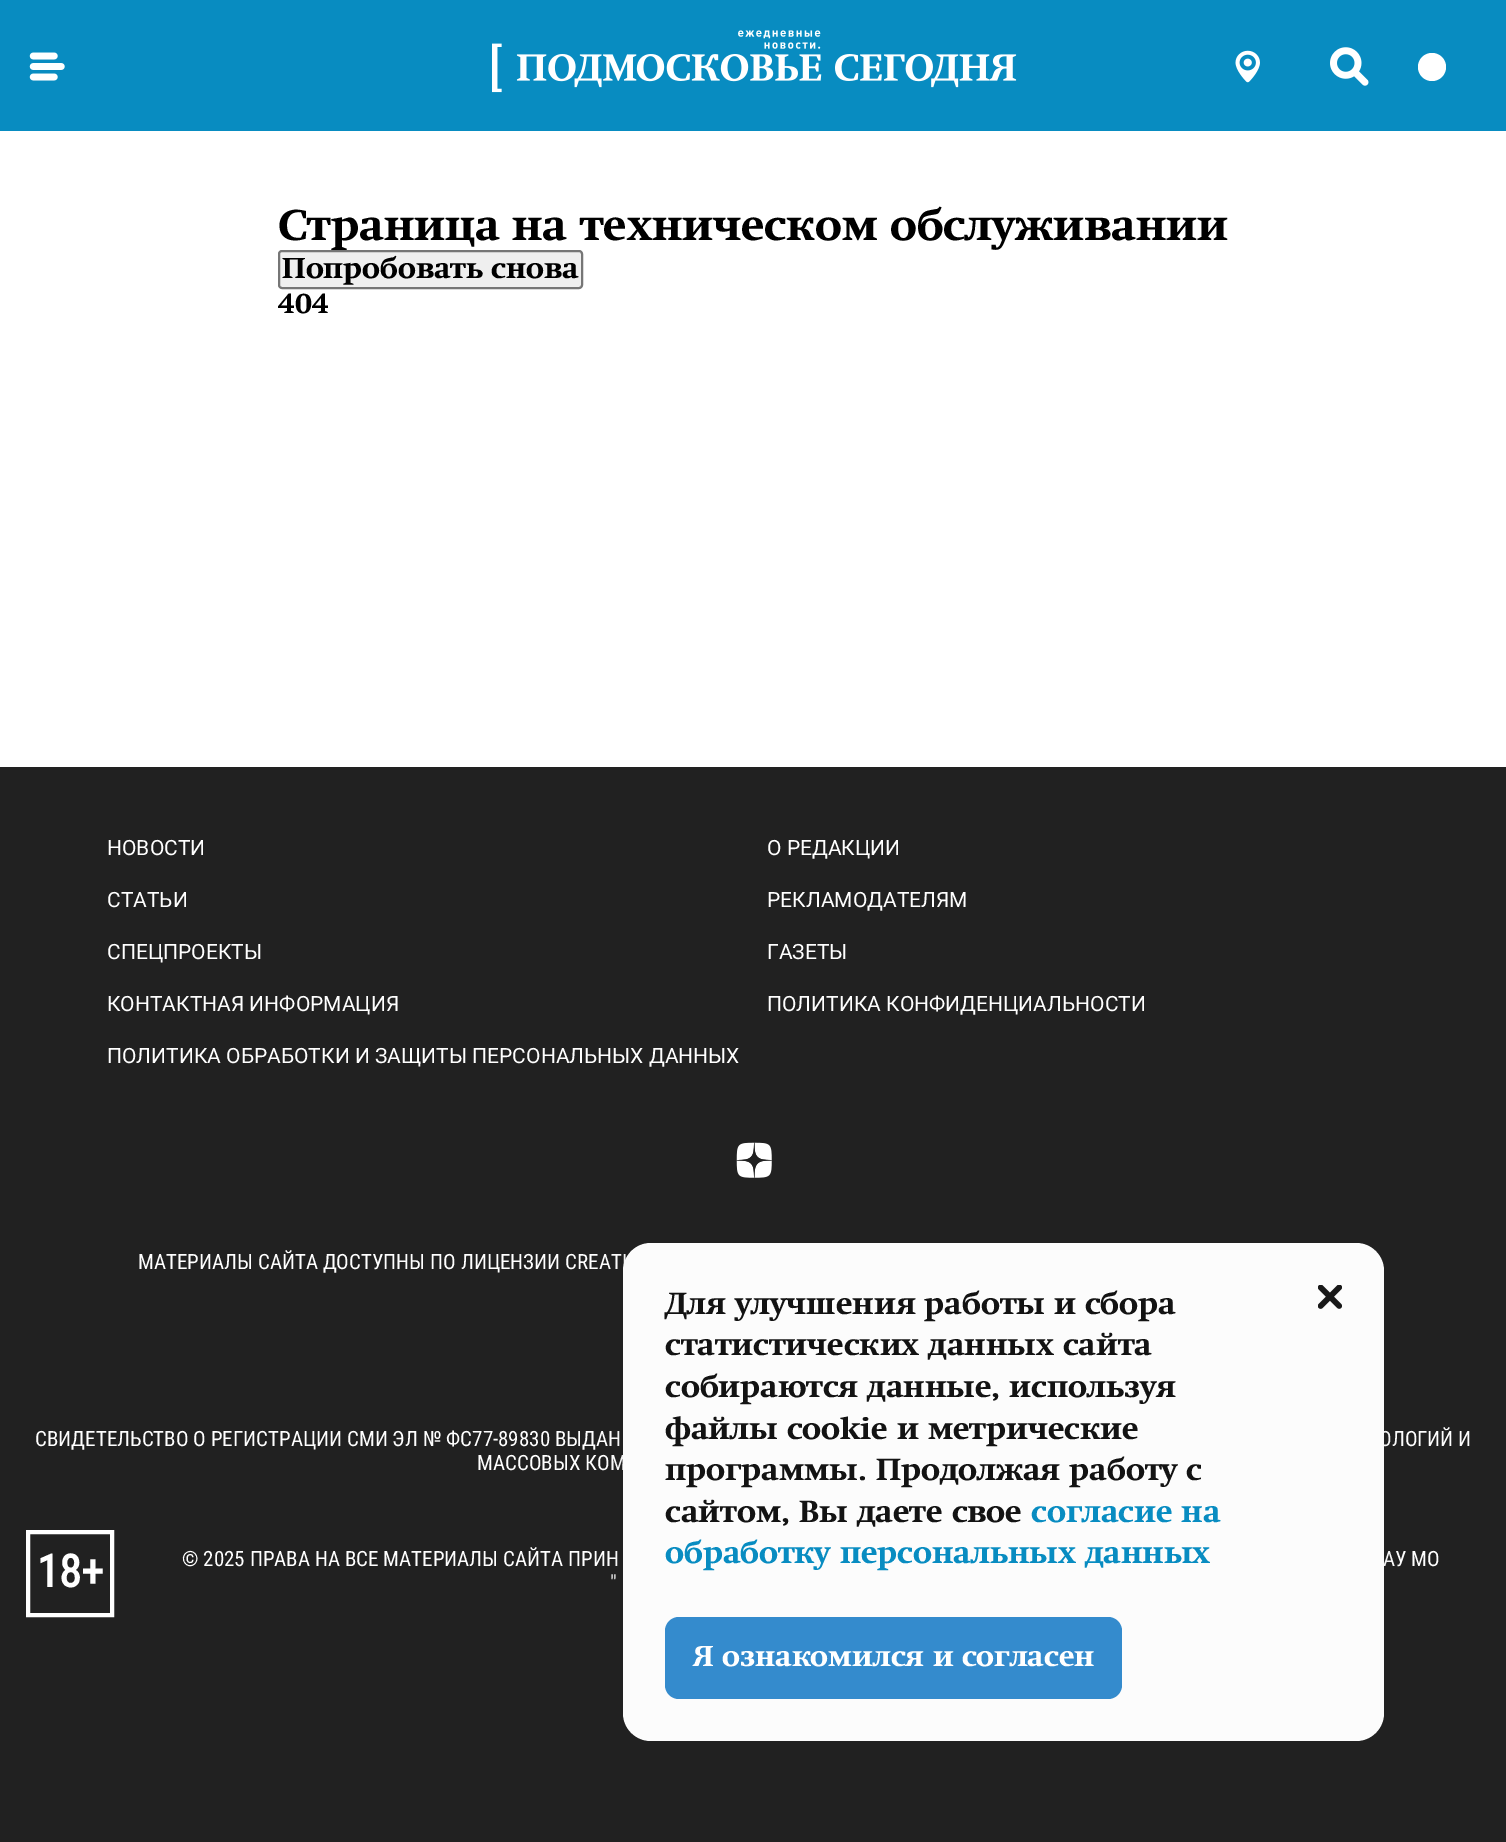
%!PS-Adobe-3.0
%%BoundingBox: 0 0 1506 1842
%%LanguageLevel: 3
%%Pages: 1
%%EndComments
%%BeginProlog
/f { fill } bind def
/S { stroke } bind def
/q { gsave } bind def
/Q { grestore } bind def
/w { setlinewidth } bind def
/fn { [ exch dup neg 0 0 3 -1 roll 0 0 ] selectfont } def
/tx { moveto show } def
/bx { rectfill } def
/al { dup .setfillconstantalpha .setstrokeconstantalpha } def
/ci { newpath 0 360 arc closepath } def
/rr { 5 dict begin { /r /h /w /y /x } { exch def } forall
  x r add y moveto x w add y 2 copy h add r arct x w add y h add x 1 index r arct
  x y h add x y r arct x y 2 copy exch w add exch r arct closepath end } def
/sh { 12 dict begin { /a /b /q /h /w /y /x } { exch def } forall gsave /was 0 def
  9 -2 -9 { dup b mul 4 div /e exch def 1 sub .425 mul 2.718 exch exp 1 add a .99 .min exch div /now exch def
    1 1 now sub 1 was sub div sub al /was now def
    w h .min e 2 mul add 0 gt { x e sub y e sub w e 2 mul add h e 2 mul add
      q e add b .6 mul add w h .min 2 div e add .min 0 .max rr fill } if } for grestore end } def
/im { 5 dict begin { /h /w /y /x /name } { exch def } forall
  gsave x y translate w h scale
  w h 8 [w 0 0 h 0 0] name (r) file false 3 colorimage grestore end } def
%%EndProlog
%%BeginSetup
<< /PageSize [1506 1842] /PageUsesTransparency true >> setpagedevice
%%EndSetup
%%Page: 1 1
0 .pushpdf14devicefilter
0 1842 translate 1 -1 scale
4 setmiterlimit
1 setgray
0 0 1506 1842 bx
0.031 0.549 0.757 setrgbcolor
0 0 1506 131 bx
(image0.raw) 29 52 36 29 im
(image1.raw) 492 30 525 63 im
(image2.raw) 1235 50 25 33 im
(image3.raw) 1330 47 39 39 im
1 setgray
1432 67 14 ci f
/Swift-ExtraBold 42 fn
0 setgray
(Страница на техническом обслуживании) 278 240 tx
0.937 setgray
279 251 303 37 3 rr q f Q
0.463 setgray
2 w
S
/Swift-ExtraBold 28 fn
0 setgray
(Попробовать снова) 282 278 tx
(404) 278 313 tx
0.129 setgray
0 767 1506 1075 bx
/Roboto-Regular 21 fn
1 setgray
(НОВОСТИ) 107 855 tx
(О РЕДАКЦИИ) 767 855 tx
(СТАТЬИ) 107 907 tx
(РЕКЛАМОДАТЕЛЯМ) 767 907 tx
(СПЕЦПРОЕКТЫ) 107 959 tx
(ГАЗЕТЫ) 767 959 tx
(КОНТАКТНАЯ ИНФОРМАЦИЯ) 107 1011 tx
(ПОЛИТИКА КОНФИДЕНЦИАЛЬНОСТИ) 767 1011 tx
(ПОЛИТИКА ОБРАБОТКИ И ЗАЩИТЫ ПЕРСОНАЛЬНЫХ ДАННЫХ) 107 1063 tx
(image4.raw) 736 1142 36 36 im
/RobotoCondensed-Regular 21 fn
(МАТЕРИАЛЫ САЙТА ДОСТУПНЫ ПО ЛИЦЕНЗИИ CREATI) 138 1269 tx
(СВИДЕТЕЛЬСТВО О РЕГИСТРАЦИИ СМИ ЭЛ № ФС77-89830 ВЫДАН) 35 1446 tx
(ОЛОГИЙ И) 1379 1446 tx
(МАССОВЫХ КОМ) 477 1470 tx
4 w
28 1532 84 83 rectstroke
/RobotoCondensed-Bold 45 fn
(18+) 37 1587 tx
/RobotoCondensed-Regular 21 fn
(© 2025 ПРАВА НА ВСЕ МАТЕРИАЛЫ САЙТА ПРИН) 182 1566 tx
(АУ МО) 1383 1566 tx
(") 610 1590 tx
0.098 setgray
623 1246 761 499 28 10.5 0.12 sh
0.988 setgray
623 1243 761 498 28 rr f
/Swift-ExtraBold 29.75 fn
0.075 setgray
(Для улучшения работы и сбора) 665 1314 tx
(статистических данных сайта) 665 1355 tx
(собираются данные, используя) 665 1397 tx
(файлы cookie и метрические) 665 1439 tx
(программы. Продолжая работу с) 665 1480 tx
(сайтом, Вы даете свое) 665 1522 tx
0.031 0.549 0.757 setrgbcolor
(согласие на) 1031 1522 tx
(обработку персональных данных) 665 1563 tx
(image5.raw) 1318 1285 24 24 im
0.204 0.545 0.804 setrgbcolor
665 1617 457 82 14 rr f
/Swift-ExtraBold 28 fn
1 setgray
(Я ознакомился и согласен) 693 1666 tx
.poppdf14devicefilter showpage
%%EOF
